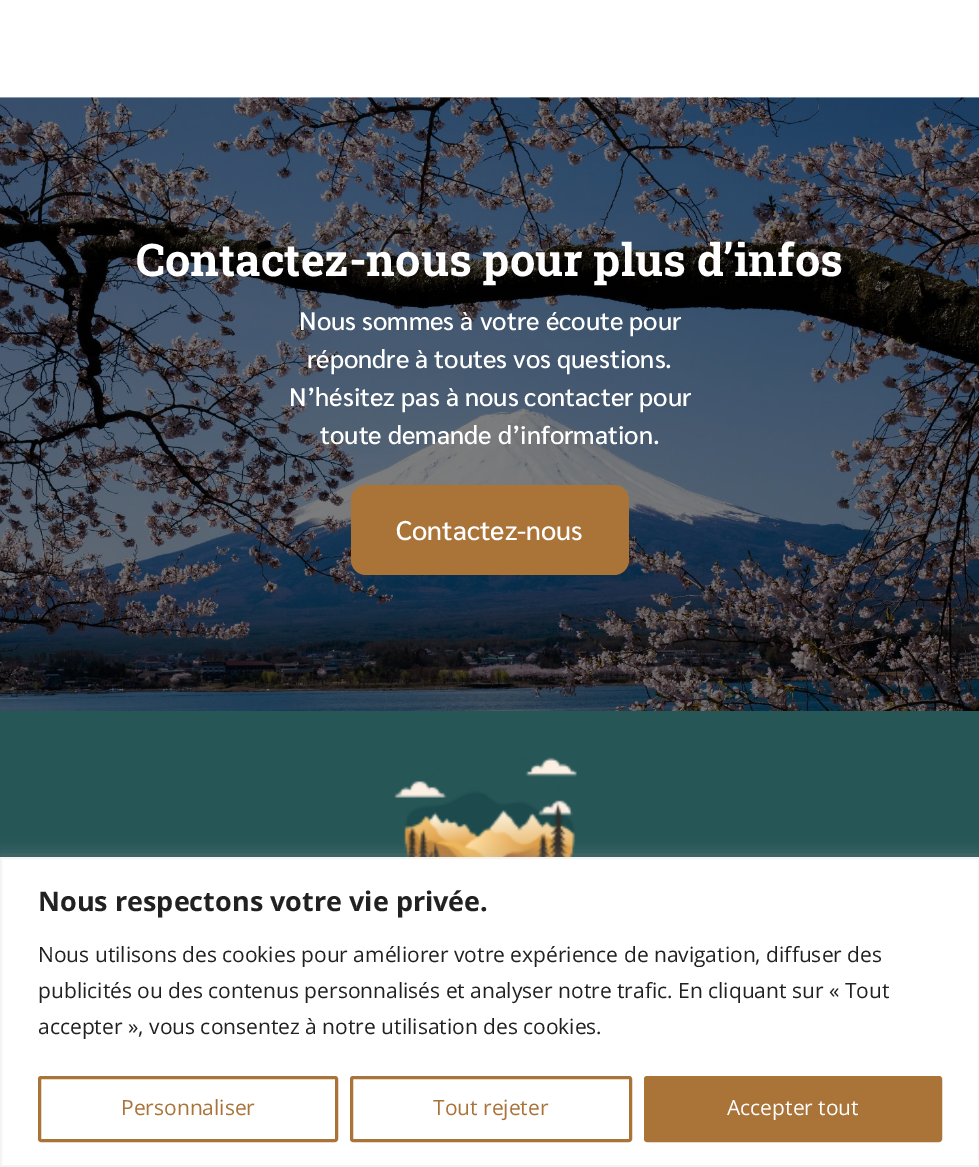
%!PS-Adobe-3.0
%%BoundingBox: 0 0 979 1167
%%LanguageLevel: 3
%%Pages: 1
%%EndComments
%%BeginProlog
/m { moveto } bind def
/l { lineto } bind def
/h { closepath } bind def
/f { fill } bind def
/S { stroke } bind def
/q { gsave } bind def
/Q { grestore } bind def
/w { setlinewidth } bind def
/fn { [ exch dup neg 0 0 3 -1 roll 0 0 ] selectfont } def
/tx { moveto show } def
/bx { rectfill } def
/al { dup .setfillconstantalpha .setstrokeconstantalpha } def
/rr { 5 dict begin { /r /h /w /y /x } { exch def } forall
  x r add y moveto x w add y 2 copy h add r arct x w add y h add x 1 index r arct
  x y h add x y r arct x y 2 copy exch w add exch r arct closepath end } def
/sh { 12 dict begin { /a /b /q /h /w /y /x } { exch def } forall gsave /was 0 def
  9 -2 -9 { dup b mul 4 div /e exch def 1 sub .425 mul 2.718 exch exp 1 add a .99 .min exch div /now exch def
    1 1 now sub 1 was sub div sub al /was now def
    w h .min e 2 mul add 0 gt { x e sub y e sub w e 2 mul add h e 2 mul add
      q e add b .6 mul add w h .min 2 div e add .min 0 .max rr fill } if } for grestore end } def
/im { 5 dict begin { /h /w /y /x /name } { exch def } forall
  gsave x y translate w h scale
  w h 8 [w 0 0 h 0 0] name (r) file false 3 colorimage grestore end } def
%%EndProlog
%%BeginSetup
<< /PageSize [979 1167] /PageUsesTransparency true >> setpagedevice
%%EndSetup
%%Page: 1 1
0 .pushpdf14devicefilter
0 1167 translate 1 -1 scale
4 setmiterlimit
1 setgray
0 0 979 1167 bx
(image0.raw) 0 97 979 614 im
/RobotoSlab-Bold 45 fn
(Contactez-nous pour plus d’infos) 136 276 tx
/Sarabun-Medium 25.5 fn
(Nous sommes à votre écoute pour) 299 330 tx
(répondre à toutes vos questions.) 307 368 tx
(N’hésitez pas à nous contacter pour) 289 406 tx
(toute demande d’information.) 320 444 tx
0.667 0.451 0.22 setrgbcolor
351 485 278 90 15 rr f
/Sarabun-Medium 27 fn
1 setgray
(Contactez-nous) 396 540 tx
0.153 0.337 0.341 setrgbcolor
0 711 979 146 bx
(image1.raw) 394 757 183 100 im
0.675 0.671 0.671 setrgbcolor
0 855 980 311 0 7.5 0.3 sh
1 setgray
1 858 m 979 858 l 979 1166 l 1 1166 l h q f Q
0.957 setgray
2 w
S
/OpenSans-Bold 27 fn
0.129 setgray
(Nous respectons votre vie privée.) 38 911 tx
/OpenSans-Regular 21 fn
(Nous utilisons des cookies pour améliorer votre expérience de navigation, diffuser des) 38 962 tx
(publicités ou des contenus personnalisés et analyser notre trafic. En cliquant sur « Tout) 38 998 tx
(accepter », vous consentez à notre utilisation des cookies.) 38 1034 tx
0.667 0.451 0.22 setrgbcolor
3 w
39.5 1077.5 297 63 1.5 rr S
(Personnaliser) 121 1115 tx
351.5 1077.5 279 63 1.5 rr S
(Tout rejeter) 433 1115 tx
645.5 1077.5 295 63 1.5 rr q f Q
S
1 setgray
(Accepter tout) 727 1115 tx
.poppdf14devicefilter showpage
%%EOF
